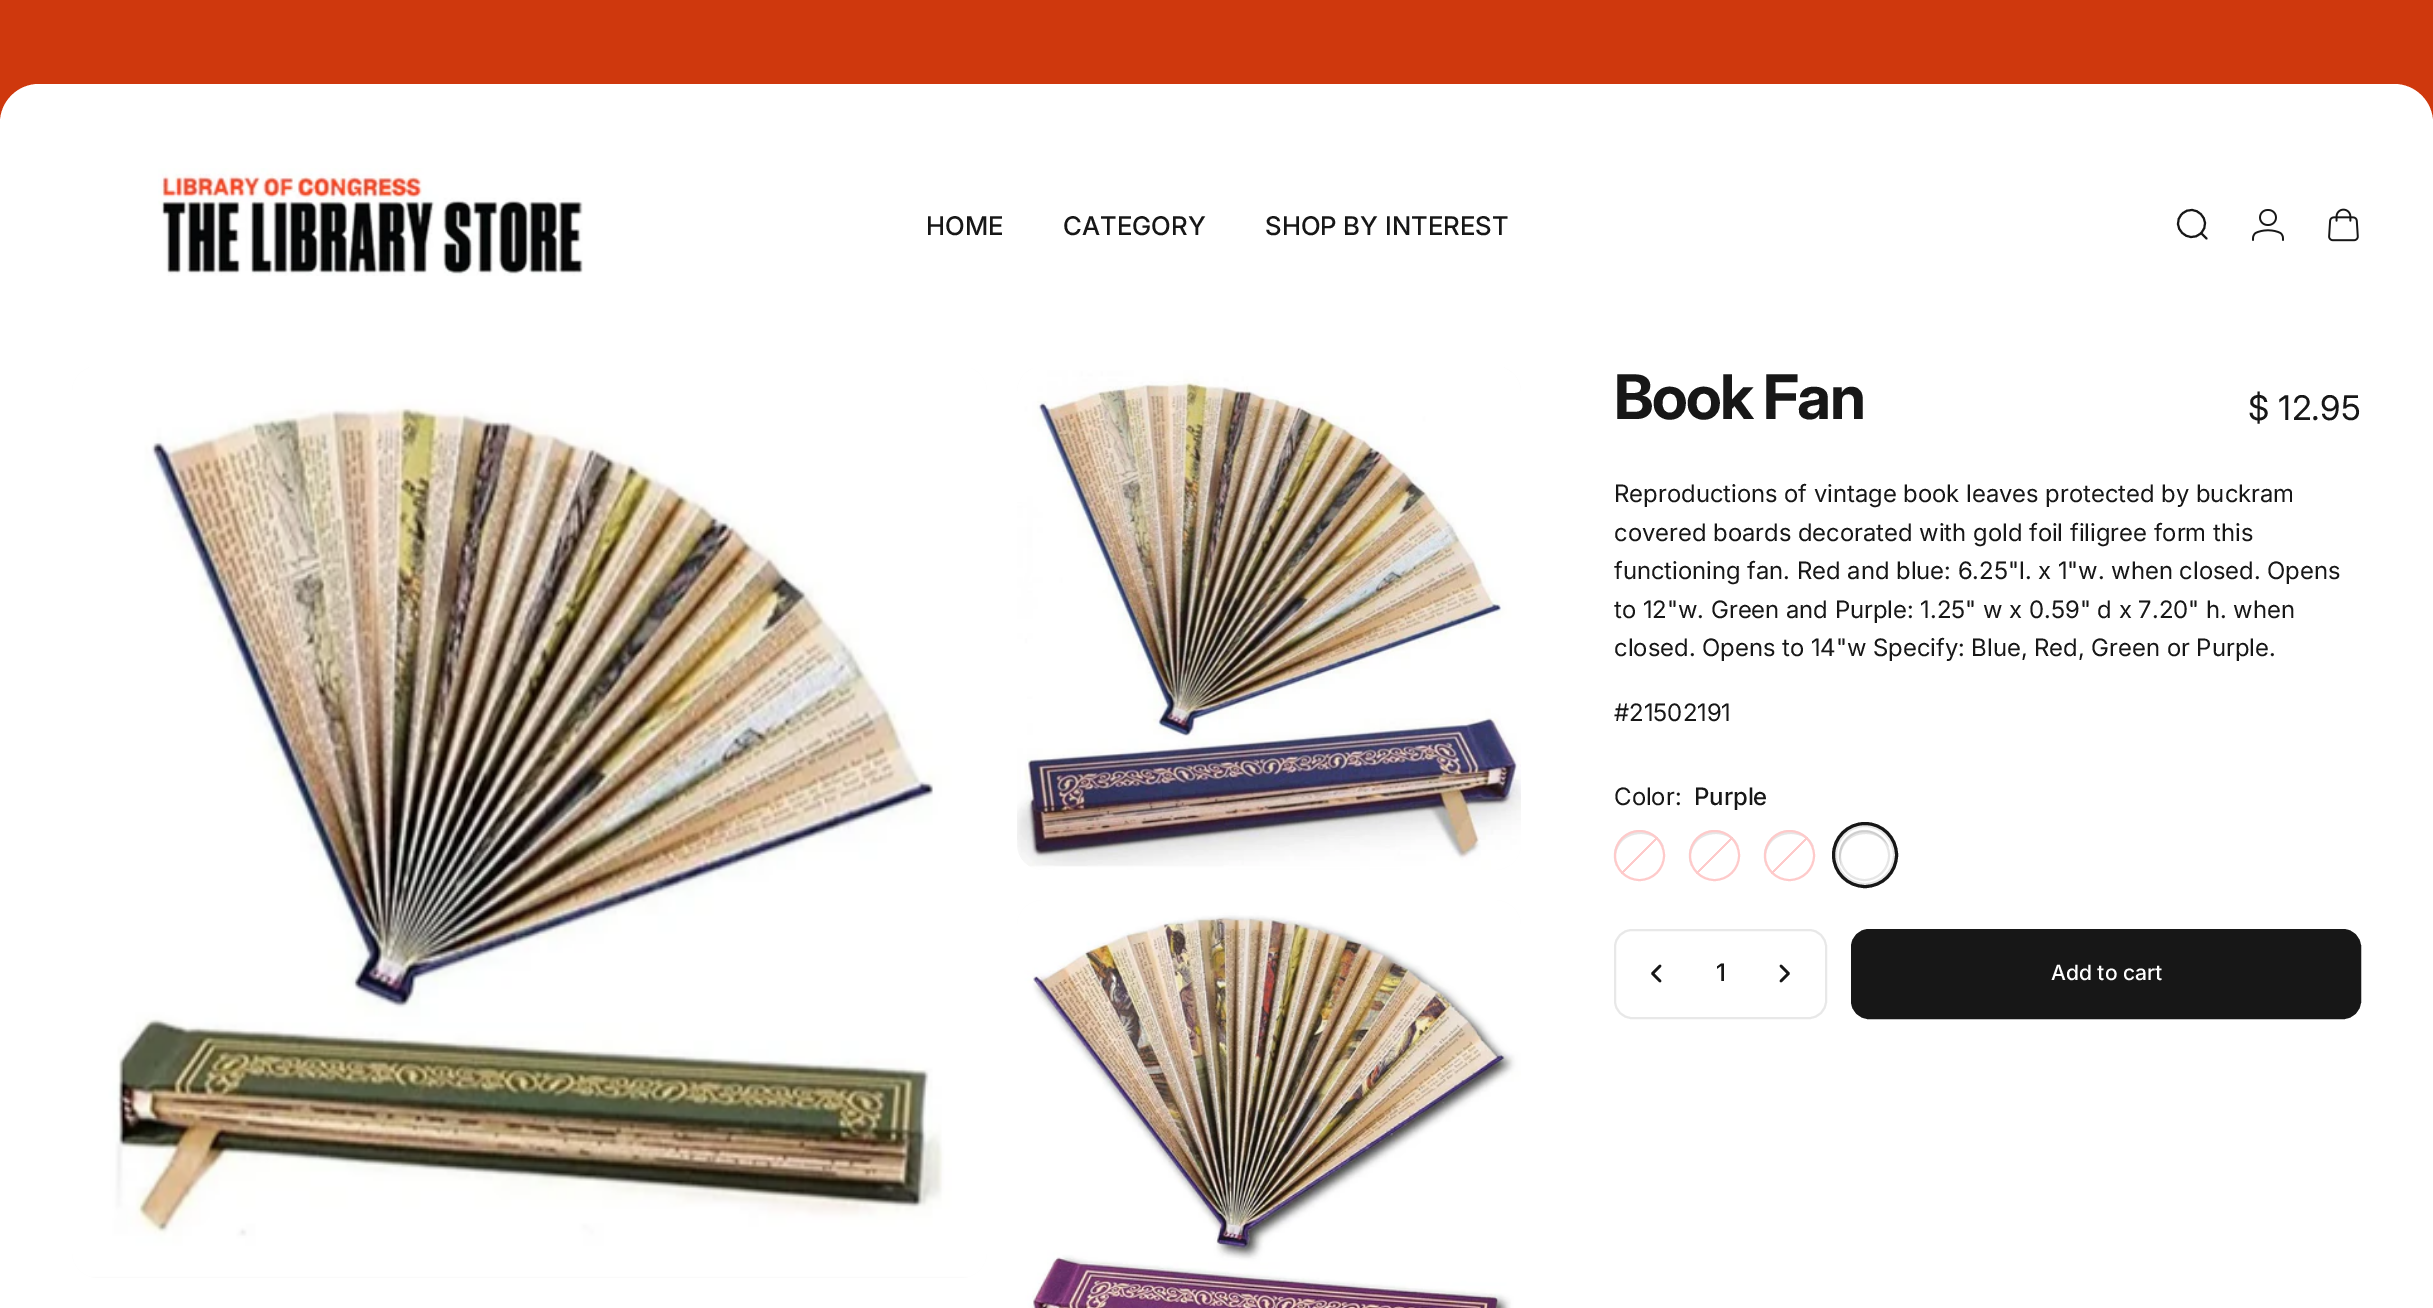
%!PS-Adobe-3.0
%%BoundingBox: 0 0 2433 1308
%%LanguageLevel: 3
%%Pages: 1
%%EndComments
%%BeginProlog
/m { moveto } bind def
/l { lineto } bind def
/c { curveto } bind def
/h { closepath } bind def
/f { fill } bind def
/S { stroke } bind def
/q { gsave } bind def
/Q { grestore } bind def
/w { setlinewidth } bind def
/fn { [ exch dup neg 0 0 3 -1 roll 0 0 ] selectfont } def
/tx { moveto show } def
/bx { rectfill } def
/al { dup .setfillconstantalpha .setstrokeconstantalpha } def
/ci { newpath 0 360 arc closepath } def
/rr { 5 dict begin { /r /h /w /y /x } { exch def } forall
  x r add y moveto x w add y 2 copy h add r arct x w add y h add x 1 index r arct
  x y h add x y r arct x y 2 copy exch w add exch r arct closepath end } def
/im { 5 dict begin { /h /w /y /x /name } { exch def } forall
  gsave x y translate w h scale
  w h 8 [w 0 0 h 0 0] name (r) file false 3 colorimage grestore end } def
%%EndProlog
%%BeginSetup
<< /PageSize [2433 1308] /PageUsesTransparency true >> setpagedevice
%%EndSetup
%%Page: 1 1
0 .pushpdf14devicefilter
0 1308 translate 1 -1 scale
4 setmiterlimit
1 setgray
0 0 2433 1308 bx
0.812 0.22 0.051 setrgbcolor
0 0 2433 39 bx
39 0 m 2394 0 l 2415.5 0 2433 17.5 2433 39 c 2433 123 l 0 123 l 0 39 l 0 17.5 17.5 0 39 0 c h f
1 setgray
39 84 m 2394 84 l 2415.5 84 2433 101.5 2433 123 c 2433 366 l 0 366 l 0 123 l 0 101.5 17.5 84 39 84 c h f
(image0.raw) 158 168 425 108 im
/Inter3-Medium 25.75 fn
0.09 setgray
(HOME) 926 235 tx
(CATEGORY) 1063 235 tx
(SHOP BY INTEREST) 1265 235 tx
2 w
1 setlinecap
2206.5 238.5 m 2201 233 l 2201 233 m 2213.5 220.5 2194.5 201.5 2182 214 c 2169.5 226.5 2188.5 245.5 2201 233 c h S
(image1.raw) 2252 209 32 32 im
(image2.raw) 2328 208 31 34 im
0.98 setgray
72 366 915 912 26 rr f
1017 366 504 504 26 rr f
1 setgray
89 366 1415 2 bx
(image3.raw) 72 368 915 909 im
(image4.raw) 1017 368 504 502 im
(image5.raw) 1017 900 504 408 im
/Inter-Bold 61.5 fn
0.09 setgray
1614 419 m -1.75 0 (Book Fan) ashow
/Inter-Regular 34 fn
($ 12.95) 2248 420 tx
/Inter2-Regular 24 fn
(Reproductions of vintage book leaves protected by buckram) 1614 502 tx
(covered boards decorated with gold foil filigree form this) 1614 541 tx
(functioning fan. Red and blue: 6.25"l. x 1"w. when closed. Opens) 1614 579 tx
(to 12"w. Green and Purple: 1.25" w x 0.59" d x 7.20" h. when) 1614 618 tx
(closed. Opens to 14"w Specify: Blue, Red, Green or Purple.) 1614 656 tx
(#21502191) 1614 721 tx
(Color:) 1614 805 tx
/Inter-Medium 24 fn
(Purple) 1694 805 tx
q 1639.5 855.5 25.5 ci clip newpath
<< /ShadingType 2 /ColorSpace /DeviceRGB /Coords [1614 830 1665 881] /Extend [true true] /Function << /FunctionType 3 /Domain [0 1] /Functions [<< /FunctionType 2 /Domain [0 1] /C0 [1 1 1] /C1 [1 1 1] /N 1 >> << /FunctionType 2 /Domain [0 1] /C0 [0.996 0.792 0.792] /C1 [0.996 0.792 0.792] /N 1 >> << /FunctionType 2 /Domain [0 1] /C0 [1 1 1] /C1 [1 1 1] /N 1 >>] /Bounds [0.49 0.51] /Encode [0 1 0 1 0 1] >> >> shfill Q
0.11 al
1641 834 m 1652 834 1660 840 1664 847 c 1662 842 1659 838 1654 835 c 1633 820 1606 843 1616 866 c 1613 851 1621 834 1641 834 c h f
1 al
0.996 0.792 0.792 setrgbcolor
0 setlinecap
1639.5 855.5 24.5 ci S
q 1714.5 855.5 25.5 ci clip newpath
<< /ShadingType 2 /ColorSpace /DeviceRGB /Coords [1689 830 1740 881] /Extend [true true] /Function << /FunctionType 3 /Domain [0 1] /Functions [<< /FunctionType 2 /Domain [0 1] /C0 [1 1 1] /C1 [1 1 1] /N 1 >> << /FunctionType 2 /Domain [0 1] /C0 [0.996 0.792 0.792] /C1 [0.996 0.792 0.792] /N 1 >> << /FunctionType 2 /Domain [0 1] /C0 [1 1 1] /C1 [1 1 1] /N 1 >>] /Bounds [0.49 0.51] /Encode [0 1 0 1 0 1] >> >> shfill Q
0.11 al
0.09 setgray
1716 834 m 1727 834 1735 840 1739 847 c 1737 842 1734 838 1729 835 c 1708 820 1681 843 1691 866 c 1688 851 1696 834 1716 834 c h f
1 al
0.996 0.792 0.792 setrgbcolor
1714.5 855.5 24.5 ci S
q 1789.5 855.5 25.5 ci clip newpath
<< /ShadingType 2 /ColorSpace /DeviceRGB /Coords [1764 830 1815 881] /Extend [true true] /Function << /FunctionType 3 /Domain [0 1] /Functions [<< /FunctionType 2 /Domain [0 1] /C0 [1 1 1] /C1 [1 1 1] /N 1 >> << /FunctionType 2 /Domain [0 1] /C0 [0.996 0.792 0.792] /C1 [0.996 0.792 0.792] /N 1 >> << /FunctionType 2 /Domain [0 1] /C0 [1 1 1] /C1 [1 1 1] /N 1 >>] /Bounds [0.49 0.51] /Encode [0 1 0 1 0 1] >> >> shfill Q
0.11 al
0.09 setgray
1791 834 m 1802 834 1810 840 1814 847 c 1812 842 1809 838 1804 835 c 1783 820 1756 843 1766 866 c 1763 851 1771 834 1791 834 c h f
1 al
0.996 0.792 0.792 setrgbcolor
1789.5 855.5 24.5 ci S
0.898 setgray
1866 834 m 1877 834 1885 840 1889 847 c 1887 842 1884 838 1879 835 c 1858 820 1831 843 1841 866 c 1838 851 1846 834 1866 834 c h f
0.11 al
0.09 setgray
1864.5 855.5 24.5 ci S
1 al
3 w
1865 855 31.5 ci S
0.11 al
2 w
1865 855 29 ci S
1 al
0.91 setgray
1615 930 211 88 17 rr S
0.09 setgray
2.5 w
1 setlinecap
1 setlinejoin
1660 966 m 1652.5 973.5 l 1660 981 l S
(1) 1716 981 tx
1781 966 m 1788.5 973.5 l 1781 981 l S
1852.5 930.5 507 87 16.5 rr q f Q
3 w
0 setlinecap
0 setlinejoin
S
/Inter2-Medium 21 fn
1 setgray
(Add to cart) 2051 980 tx
.poppdf14devicefilter showpage
%%EOF
